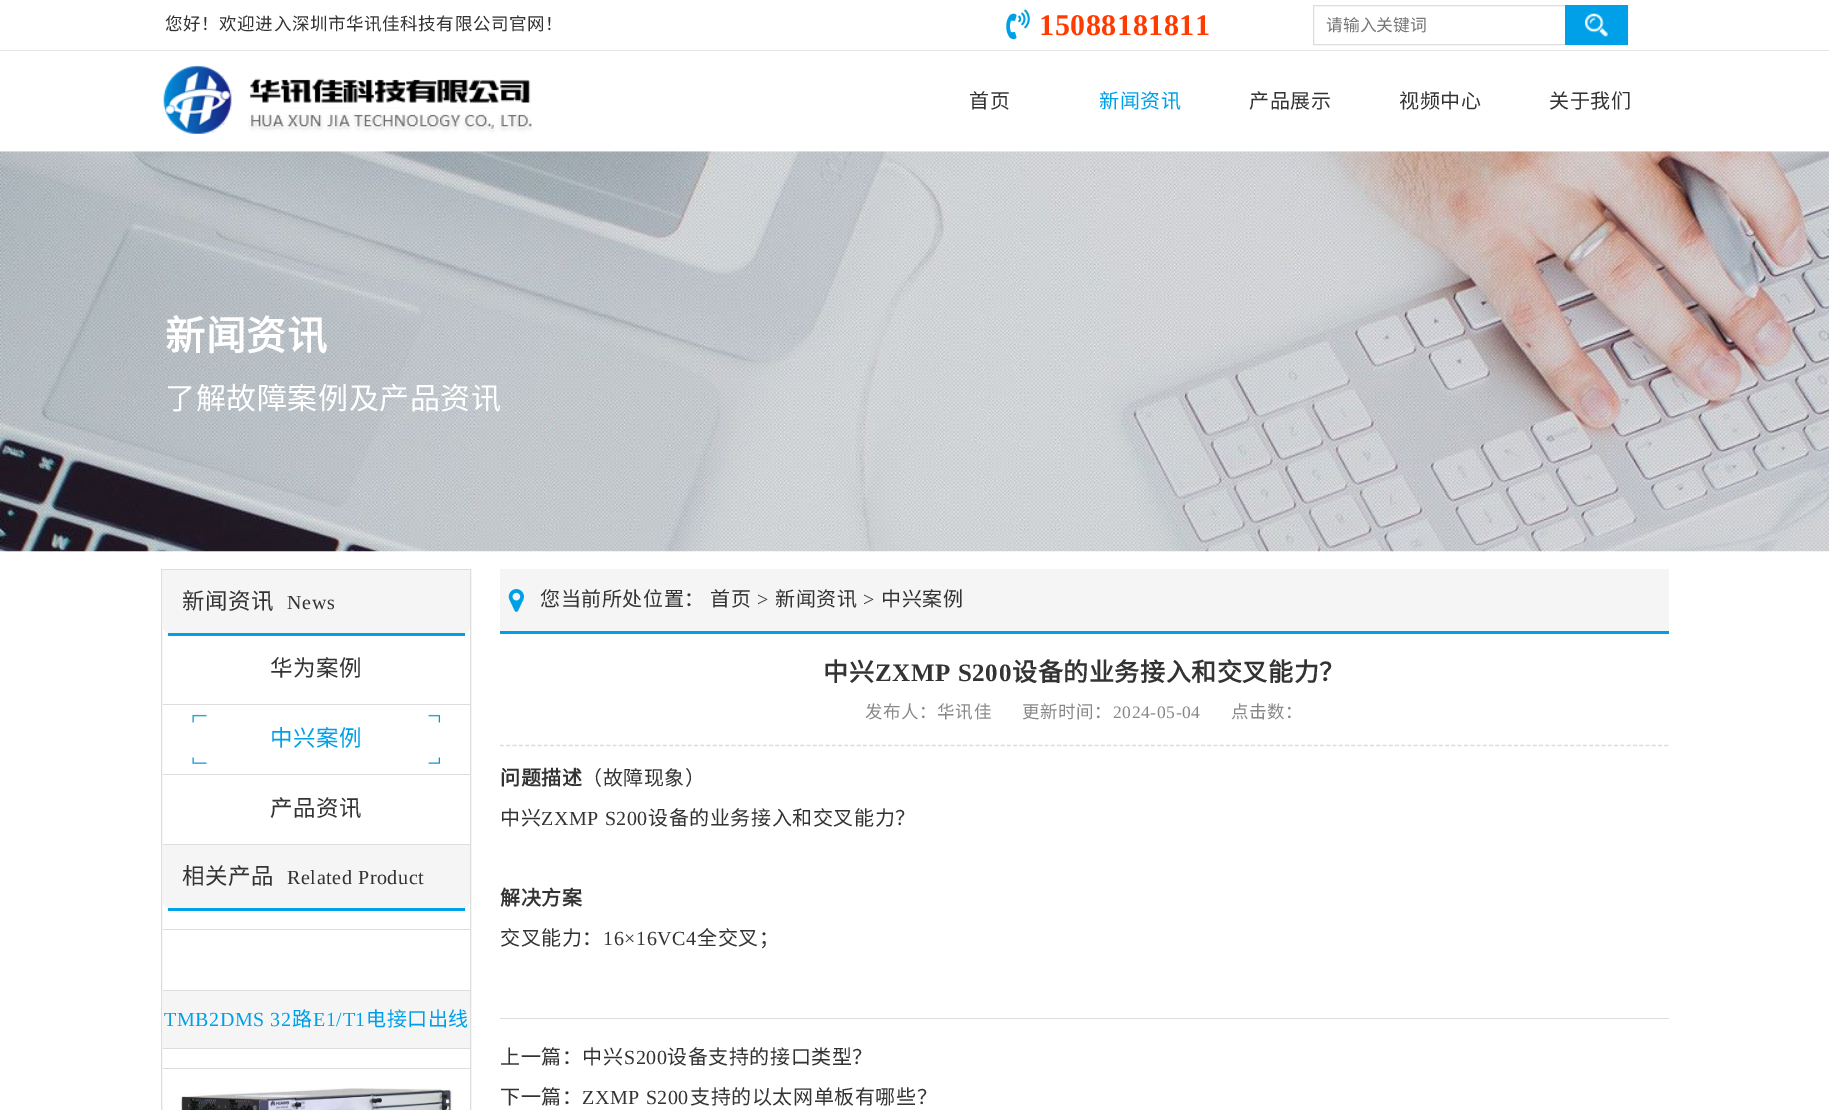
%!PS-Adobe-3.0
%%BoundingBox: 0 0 1829 1110
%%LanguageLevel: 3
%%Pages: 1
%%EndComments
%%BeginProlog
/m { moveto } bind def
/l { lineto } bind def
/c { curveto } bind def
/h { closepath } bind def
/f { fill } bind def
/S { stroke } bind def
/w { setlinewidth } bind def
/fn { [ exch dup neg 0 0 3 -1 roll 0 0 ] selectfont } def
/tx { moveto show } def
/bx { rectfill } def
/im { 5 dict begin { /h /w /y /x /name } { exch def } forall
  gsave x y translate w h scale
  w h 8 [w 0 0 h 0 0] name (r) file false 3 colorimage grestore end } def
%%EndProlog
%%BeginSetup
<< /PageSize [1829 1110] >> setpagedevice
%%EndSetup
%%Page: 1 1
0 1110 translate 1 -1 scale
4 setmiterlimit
1 setgray
0 0 1829 1110 bx
0.898 setgray
0 50 1829 1 bx
/NotoSansCJKSC-Regular 17.5 fn
0.2 setgray
165 30 m 0.6 0 (您好！欢迎进入深圳市华讯佳科技有限公司官网！) ashow
(image0.raw) 1006 9 24 31 im
/LiberationSerif-Bold 30 fn
1 0.231 0 setrgbcolor
1039 35 m 0.6 0 (15088181811) ashow
0.867 setgray
1313.5 5.5 314 39 rectstroke
/NotoSansCJKSC-Regular 16.75 fn
0.459 setgray
(请输入关键词) 1326 31 tx
0 0.627 0.914 setrgbcolor
1565 5 63 40 bx
(image1.raw) 1585 13 23 24 im
(image2.raw) 163 65 370 69 im
/NotoSansCJKSC-Regular 20 fn
0.2 setgray
969 108 m 0.6 0 (首页) ashow
0 0.627 0.914 setrgbcolor
1099 108 m 0.6 0 (新闻资讯) ashow
0.2 setgray
1249 108 m 0.6 0 (产品展示) ashow
1399 108 m 0.6 0 (视频中心) ashow
1549 108 m 0.6 0 (关于我们) ashow
(image3.raw) 0 151 1829 401 im
/NotoSansCJKSC-Bold 40 fn
1 setgray
165 350 m 0.6 0 (新闻资讯) ashow
/NotoSansCJKSC-Regular 30 fn
165 409 m 0.6 0 (了解故障案例及产品资讯) ashow
0.867 setgray
161.5 569.5 309 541 rectstroke
0.961 setgray
163 570 m 470 570 l 470 625 l 470 630.5 465.5 635 460 635 c 173 635 l 167.5 635 163 630.5 163 625 c h f
0 0.627 0.914 setrgbcolor
168 633 297 3 bx
/NotoSansCJKSC-Regular 22.5 fn
0.2 setgray
182 609 m 0.6 0 (新闻资讯) ashow
/LiberationSerif-Regular 20 fn
287 609 m 0.6 0 (News) ashow
0.867 setgray
163 704 307 1 bx
/NotoSansCJKSC-Regular 22.5 fn
0.2 setgray
270 676 m 0.6 0 (华为案例) ashow
(image4.raw) 192 714 248 50 im
0.867 setgray
163 774 307 1 bx
0 0.627 0.914 setrgbcolor
270 746 m 0.6 0 (中兴案例) ashow
0.867 setgray
163 844 307 1 bx
0.2 setgray
270 816 m 0.6 0 (产品资讯) ashow
0.961 setgray
163 845 m 470 845 l 470 900 l 470 905.5 465.5 910 460 910 c 173 910 l 167.5 910 163 905.5 163 900 c h f
0 0.627 0.914 setrgbcolor
168 908 297 3 bx
0.2 setgray
182 884 m 0.6 0 (相关产品) ashow
/LiberationSerif-Regular 20 fn
287 884 m 0.6 0 (Related Product) ashow
0.867 setgray
163 929 307 1 bx
163 1048 307 1 bx
163 990 307 1 bx
0.961 setgray
163 991 307 57 bx
0 0.627 0.914 setrgbcolor
164 1026 m 0.6 0 (TMB2DMS 32) ashow
/NotoSansCJKSC-Regular 20 fn
292 1026 m 0.6 0 (路) ashow
/LiberationSerif-Regular 20 fn
313 1026 m 0.6 0 (E1/T1) ashow
/NotoSansCJKSC-Regular 20 fn
366 1026 m 0.6 0 (电接口出线) ashow
0.867 setgray
163 1068 307 1 bx
(image5.raw) 180 1088 273 22 im
0.961 setgray
500 569 1169 62 bx
0 0.627 0.914 setrgbcolor
500 631 1169 3 bx
(image6.raw) 508 589 16 23 im
0.2 setgray
540 606 m 0.6 0 (您当前所处位置：) ashow
710 606 m 0.6 0 (首页) ashow
/LiberationSerif-Regular 20 fn
757 606 m 0.6 0 (>) ashow
/NotoSansCJKSC-Regular 20 fn
775 606 m 0.6 0 (新闻资讯) ashow
/LiberationSerif-Regular 20 fn
863 606 m 0.6 0 (>) ashow
/NotoSansCJKSC-Regular 20 fn
881 606 m 0.6 0 (中兴案例) ashow
/NotoSansCJKSC-Bold 25 fn
823 681 m 0.6 0 (中兴) ashow
/LiberationSerif-Bold 25 fn
875 681 m 0.6 0 (ZXMP S200) ashow
/NotoSansCJKSC-Bold 25 fn
1012 681 m 0.6 0 (设备的业务接入和交叉能力？) ashow
0.867 setgray
1.2 w
[3.75 2.51] 0 setdash
500 745.5 m 1669 745.5 l S
/NotoSansCJKSC-Regular 17.5 fn
0.533 setgray
865 718 m 0.6 0 (发布人：华讯佳) ashow
1022 718 m 0.6 0 (更新时间：) ashow
/LiberationSerif-Regular 17.5 fn
1113 718 m 0.6 0 (2024-05-04) ashow
/NotoSansCJKSC-Regular 17.5 fn
1231 718 m 0.6 0 (点击数：) ashow
/NotoSansCJKSC-Bold 20 fn
0.2 setgray
500 785 m 0.6 0 (问题描述) ashow
/NotoSansCJKSC-Regular 20 fn
582 785 m 0.6 0 (（故障现象）) ashow
500 825 m 0.6 0 (中兴) ashow
/LiberationSerif-Regular 20 fn
541 825 m 0.6 0 (ZXMP S200) ashow
/NotoSansCJKSC-Regular 20 fn
648 825 m 0.6 0 (设备的业务接入和交叉能力？) ashow
/NotoSansCJKSC-Bold 20 fn
500 905 m 0.6 0 (解决方案) ashow
/NotoSansCJKSC-Regular 20 fn
500 945 m 0.6 0 (交叉能力：) ashow
/LiberationSerif-Regular 20 fn
603 945 m 0.6 0 (16×16VC4) ashow
/NotoSansCJKSC-Regular 20 fn
697 945 m 0.6 0 (全交叉；) ashow
0.867 setgray
500 1018 1169 1 bx
0.2 setgray
500 1064 m 0.6 0 (上一篇：中兴) ashow
/LiberationSerif-Regular 20 fn
624 1064 m 0.6 0 (S200) ashow
/NotoSansCJKSC-Regular 20 fn
667 1064 m 0.6 0 (设备支持的接口类型？) ashow
500 1104 m 0.6 0 (下一篇：) ashow
/LiberationSerif-Regular 20 fn
582 1104 m 0.6 0 (ZXMP S200) ashow
/NotoSansCJKSC-Regular 20 fn
690 1104 m 0.6 0 (支持的以太网单板有哪些？) ashow
showpage
%%EOF
